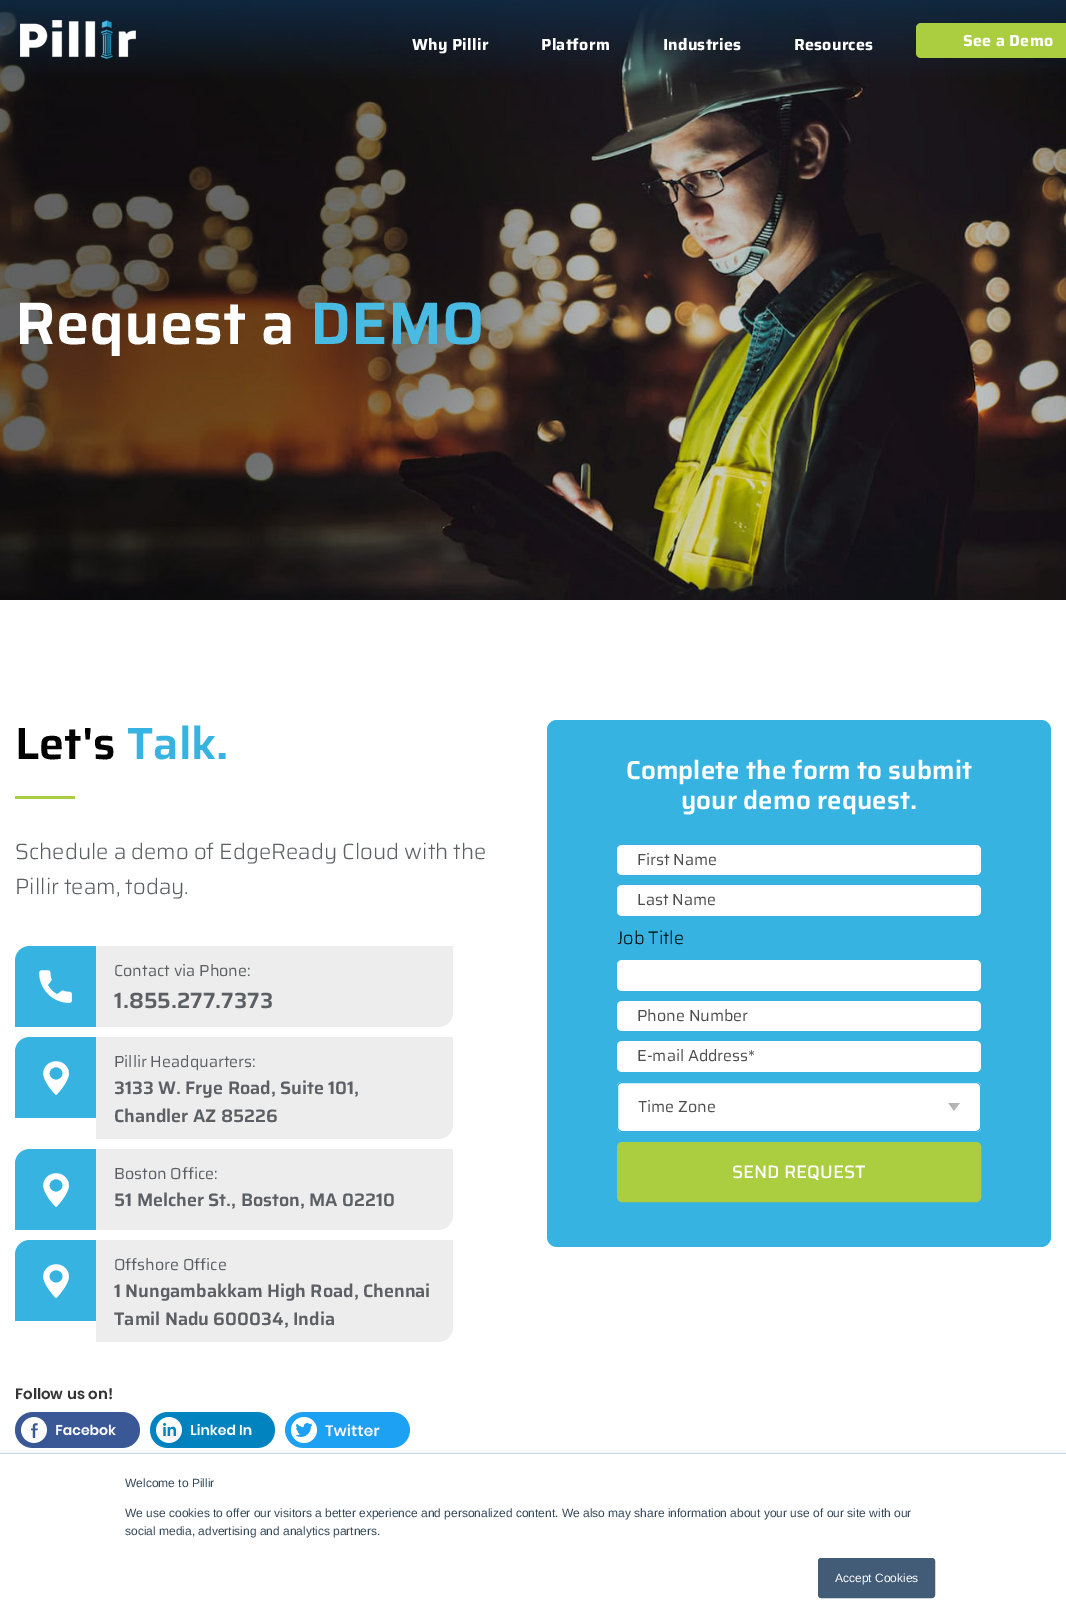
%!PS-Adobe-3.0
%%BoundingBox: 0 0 1066 1624
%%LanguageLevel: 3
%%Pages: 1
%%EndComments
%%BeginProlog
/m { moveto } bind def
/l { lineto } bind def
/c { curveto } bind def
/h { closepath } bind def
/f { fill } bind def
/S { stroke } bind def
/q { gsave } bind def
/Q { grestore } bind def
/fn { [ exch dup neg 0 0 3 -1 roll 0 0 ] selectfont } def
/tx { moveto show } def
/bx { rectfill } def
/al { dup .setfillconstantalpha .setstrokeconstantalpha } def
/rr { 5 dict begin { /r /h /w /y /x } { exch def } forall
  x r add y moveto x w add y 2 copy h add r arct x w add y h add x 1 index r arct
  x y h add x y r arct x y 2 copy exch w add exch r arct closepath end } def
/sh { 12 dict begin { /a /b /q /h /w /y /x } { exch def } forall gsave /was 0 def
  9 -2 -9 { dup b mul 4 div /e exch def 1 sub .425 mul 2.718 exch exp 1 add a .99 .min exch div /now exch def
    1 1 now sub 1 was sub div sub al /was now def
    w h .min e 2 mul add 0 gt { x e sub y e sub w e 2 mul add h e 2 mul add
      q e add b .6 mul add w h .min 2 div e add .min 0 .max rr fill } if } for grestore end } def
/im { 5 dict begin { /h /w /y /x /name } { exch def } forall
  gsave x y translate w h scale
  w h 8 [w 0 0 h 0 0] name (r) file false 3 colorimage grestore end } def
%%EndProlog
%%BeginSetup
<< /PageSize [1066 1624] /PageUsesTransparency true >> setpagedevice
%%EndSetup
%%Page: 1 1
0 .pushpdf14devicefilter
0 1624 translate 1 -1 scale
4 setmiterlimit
1 setgray
0 0 1066 1624 bx
(image1.raw) 0 0 1066 600 im
(image0.raw) 20 20 116 39 im
/Saira-Bold 16 fn
412 50 m 0.25 0 (Why Pillir) ashow
541 50 m 0.25 0 (Platform) ashow
663 50 m 0.25 0 (Industries) ashow
794 50 m 0.25 0 (Resources) ashow
0.667 0.808 0.251 setrgbcolor
916 23 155 35 5 rr f
1 setgray
963 46 m 0.25 0 (See a Demo) ashow
/Saira-SemiBold 60 fn
(Request a) 15 344 tx
0.286 0.729 0.886 setrgbcolor
(DEMO) 310 344 tx
/Saira-SemiBold 45 fn
0 setgray
(Let's) 15 759 tx
0.212 0.702 0.882 setrgbcolor
(Talk.) 127 759 tx
0.667 0.808 0.251 setrgbcolor
15 796 60 3 bx
/Saira-Light 22 fn
0.361 0.376 0.392 setrgbcolor
(Schedule a demo of EdgeReady Cloud with the) 15 859 tx
(Pillir team, today.) 15 894 tx
0.212 0.702 0.882 setrgbcolor
30 946 m 96 946 l 96 1027 l 15 1027 l 15 961 l 15 952.5 21.5 946 30 946 c h f
(image2.raw) 39 970 33 33 im
0.929 setgray
96 946 m 453 946 l 453 1012 l 453 1020.5 446.5 1027 438 1027 c 96 1027 l h f
/Saira-Regular 16 fn
0.361 0.376 0.392 setrgbcolor
(Contact via Phone:) 114 976 tx
/Saira-SemiBold 22 fn
(1.855.277.7373) 114 1008 tx
0.212 0.702 0.882 setrgbcolor
30 1037 m 96 1037 l 96 1118 l 15 1118 l 15 1052 l 15 1043.5 21.5 1037 30 1037 c h f
(image3.raw) 43 1061 26 34 im
0.929 setgray
96 1037 m 453 1037 l 453 1124 l 453 1132.5 446.5 1139 438 1139 c 96 1139 l h f
/Saira-Regular 16 fn
0.361 0.376 0.392 setrgbcolor
(Pillir Headquarters:) 114 1067 tx
/Saira-SemiBold 18 fn
(3133 W. Frye Road, Suite 101,) 114 1094 tx
(Chandler AZ 85226) 114 1122 tx
0.212 0.702 0.882 setrgbcolor
30 1149 m 96 1149 l 96 1230 l 15 1230 l 15 1164 l 15 1155.5 21.5 1149 30 1149 c h f
(image3.raw) 43 1173 26 34 im
0.929 setgray
96 1149 m 453 1149 l 453 1215 l 453 1223.5 446.5 1230 438 1230 c 96 1230 l h f
/Saira-Regular 16 fn
0.361 0.376 0.392 setrgbcolor
(Boston Office:) 114 1179 tx
/Saira-SemiBold 18 fn
(51 Melcher St., Boston, MA 02210) 114 1206 tx
0.212 0.702 0.882 setrgbcolor
30 1240 m 96 1240 l 96 1321 l 15 1321 l 15 1255 l 15 1246.5 21.5 1240 30 1240 c h f
(image3.raw) 43 1264 26 34 im
0.929 setgray
96 1240 m 453 1240 l 453 1327 l 453 1335.5 446.5 1342 438 1342 c 96 1342 l h f
/Saira-Regular 16 fn
0.361 0.376 0.392 setrgbcolor
(Offshore Office) 114 1270 tx
/Saira-SemiBold 18 fn
(1 Nungambakkam High Road, Chennai) 114 1297 tx
(Tamil Nadu 600034, India) 114 1325 tx
/Poppins-SemiBold 15 fn
0.204 setgray
(Follow us on!) 15 1399 tx
(image4.raw) 15 1412 125 36 im
(image5.raw) 150 1412 125 36 im
(image6.raw) 285 1412 125 36 im
0.212 0.702 0.882 setrgbcolor
547 720 504 527 10 rr f
/Saira-SemiBold 26 fn
1 setgray
(Complete the form to submit) 626 779 tx
(your demo request.) 681 809 tx
617 845 364 30 5 rr f
/Saira-Regular 16 fn
0.306 setgray
(First Name) 637 865 tx
1 setgray
617 885 364 31 5 rr f
0.306 setgray
(Last Name) 637 905 tx
/Saira-Light 18 fn
0 setgray
(Job Title) 617 944 tx
1 setgray
617 960 364 31 5 rr f
617 1001 364 30 5 rr f
/Saira-Regular 16 fn
0.306 setgray
(Phone Number) 637 1021 tx
1 setgray
617 1041 364 31 5 rr f
0.306 setgray
(E-mail Address*) 637 1061 tx
1 setgray
617 1082 364 50 5 rr f
(image7.raw) 948 1103 12 8 im
0.212 0.702 0.882 setrgbcolor
617.5 1082.5 363 49 4.5 rr S
0.306 setgray
(Time Zone) 638 1112 tx
0.667 0.808 0.251 setrgbcolor
617.5 1142.5 363 59 4.5 rr q f Q
S
/Saira-Medium 18 fn
1 setgray
(SEND REQUEST) 732 1178 tx
q
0 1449 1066 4 rectclip
0.918 0.941 0.965 setrgbcolor
0 1452 1066 171 0 1.5 1 sh
Q
0.796 0.839 0.886 setrgbcolor
0 1453 1066 1 bx
/LiberationSans-Regular 12 fn
0.2 0.278 0.357 setrgbcolor
(Welcome to Pillir) 125 1487 tx
(We use cookies to offer our visitors a better experience and personalized content. We also may share information about your use of our site with our) 125 1517 tx
(social media, advertising and analytics partners.) 125 1535 tx
0.259 0.357 0.463 setrgbcolor
818.5 1558.5 116 39 2.5 rr q f Q
S
1 setgray
(Accept Cookies) 835 1582 tx
.poppdf14devicefilter showpage
%%EOF
